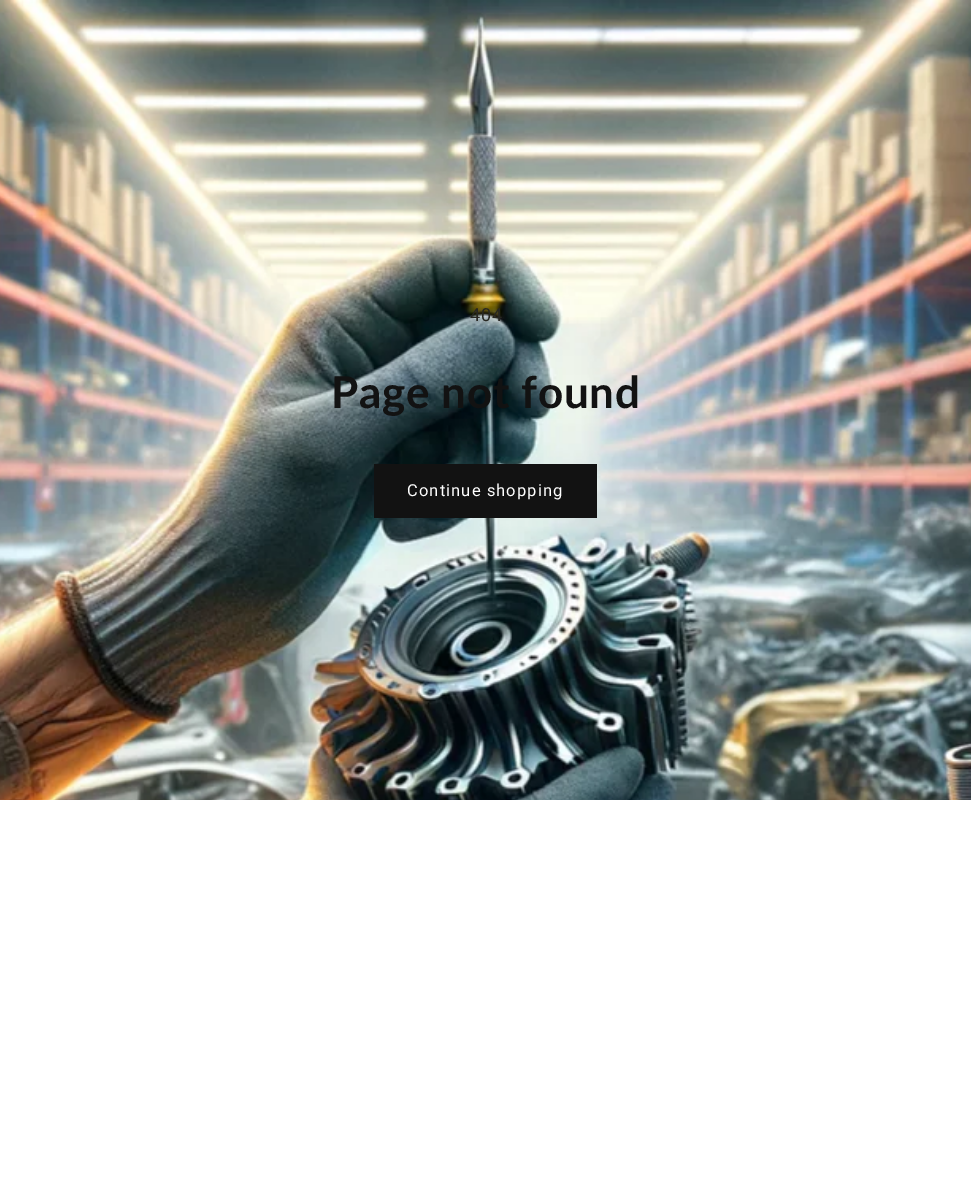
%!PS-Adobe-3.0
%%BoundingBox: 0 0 971 1199
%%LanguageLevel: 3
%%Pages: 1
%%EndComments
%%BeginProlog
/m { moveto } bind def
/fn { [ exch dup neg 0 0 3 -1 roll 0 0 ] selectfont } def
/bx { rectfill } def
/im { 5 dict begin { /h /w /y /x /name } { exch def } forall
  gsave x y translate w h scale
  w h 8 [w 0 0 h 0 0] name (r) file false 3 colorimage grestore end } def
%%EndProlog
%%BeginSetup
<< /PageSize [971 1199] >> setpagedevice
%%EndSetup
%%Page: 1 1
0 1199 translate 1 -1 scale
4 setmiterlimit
1 setgray
0 0 971 1199 bx
(image0.raw) 0 0 971 800 im
/Roboto-Regular 18 fn
0.153 0.153 0.133 setrgbcolor
470 321 m 0.7 0 (404) ashow
/Lato-Bold 44 fn
0.071 setgray
331 408 m 0.7 0 (Page not found) ashow
374 464 223 54 bx
/Roboto-Regular 16.5 fn
1 setgray
407 496 m 1.1 0 (Continue shopping) ashow
showpage
%%EOF
